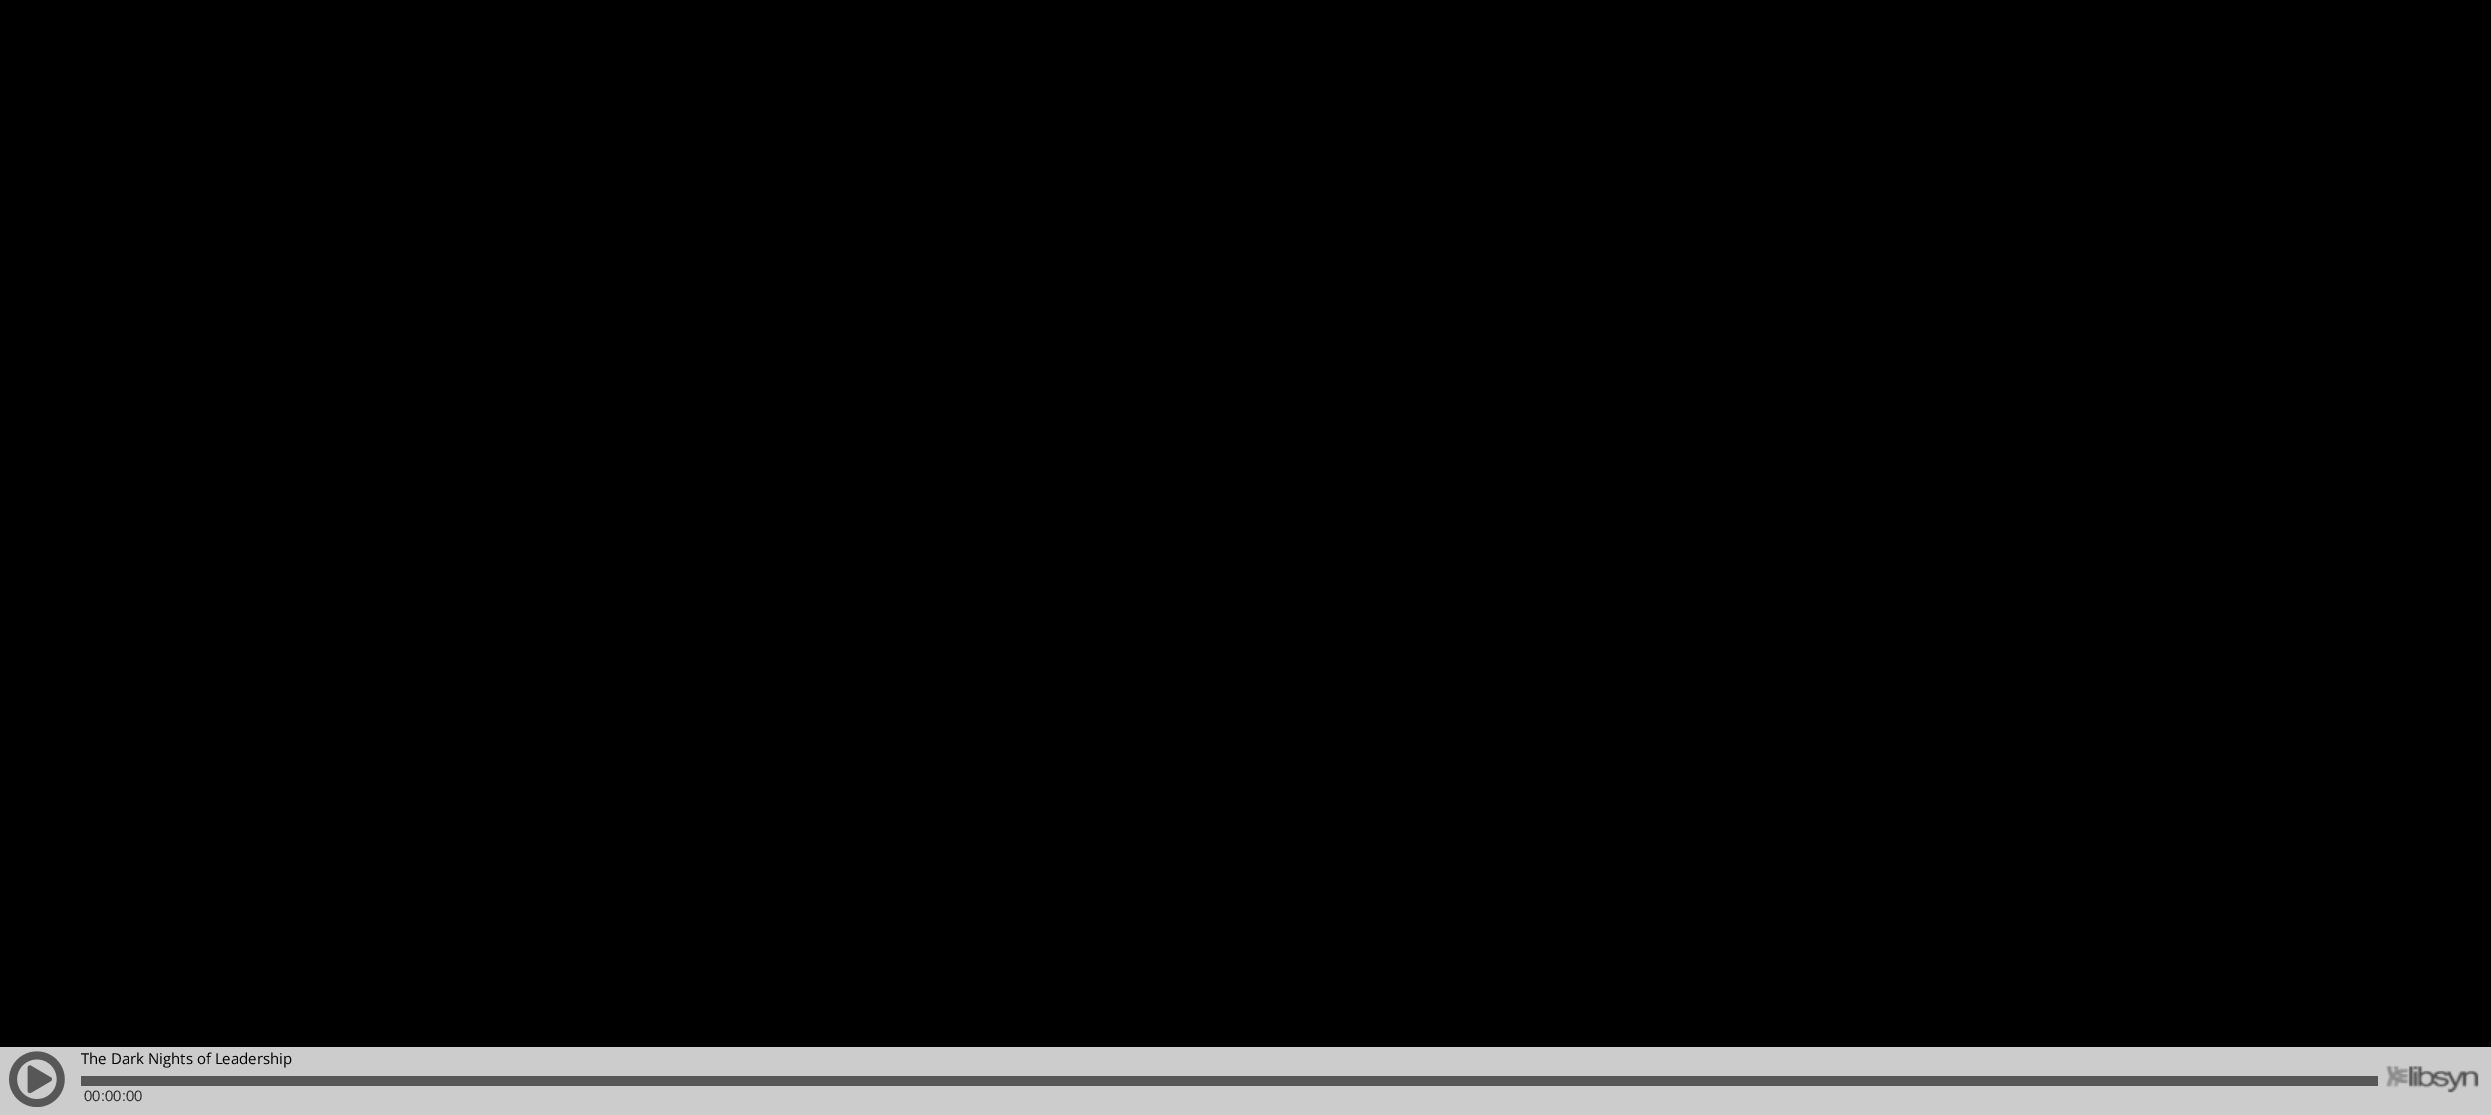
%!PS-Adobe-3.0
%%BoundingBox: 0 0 2491 1115
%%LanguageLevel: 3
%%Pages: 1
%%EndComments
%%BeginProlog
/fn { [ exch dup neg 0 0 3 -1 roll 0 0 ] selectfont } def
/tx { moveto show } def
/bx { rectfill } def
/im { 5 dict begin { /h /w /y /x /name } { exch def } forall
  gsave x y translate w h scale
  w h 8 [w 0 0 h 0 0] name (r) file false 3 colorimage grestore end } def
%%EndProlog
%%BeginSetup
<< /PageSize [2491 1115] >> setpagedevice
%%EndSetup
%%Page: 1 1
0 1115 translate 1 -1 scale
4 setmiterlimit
0 setgray
0 0 2491 1115 bx
0.8 setgray
0 1047 2491 68 bx
(image0.raw) 9 1051 56 56 im
/OpenSans-Regular 15 fn
0 setgray
(The Dark Nights of Leadership) 81 1064 tx
0.341 setgray
81 1076 2297 10 bx
/LiberationSans-Regular 15 fn
0.2 setgray
(00:00:00) 84 1101 tx
(image1.raw) 2386 1065 93 28 im
showpage
%%EOF
